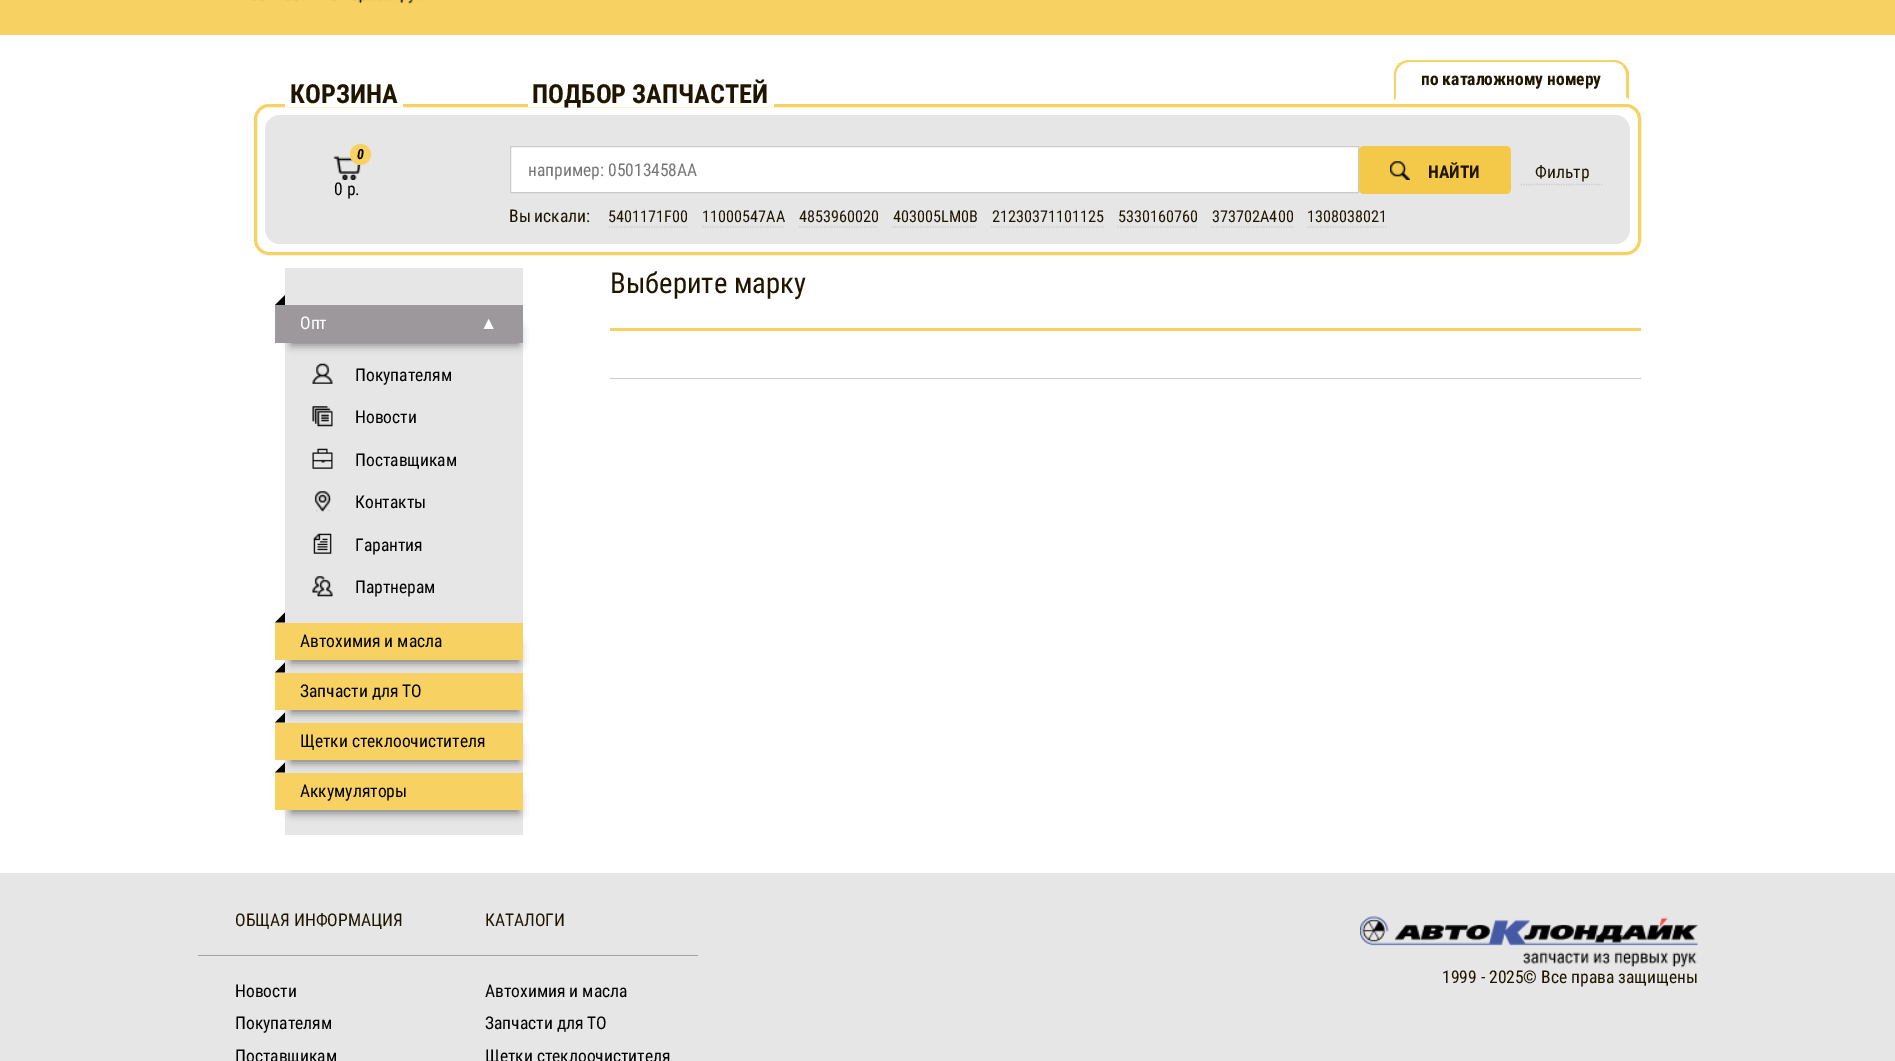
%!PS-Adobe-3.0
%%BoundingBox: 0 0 1895 1061
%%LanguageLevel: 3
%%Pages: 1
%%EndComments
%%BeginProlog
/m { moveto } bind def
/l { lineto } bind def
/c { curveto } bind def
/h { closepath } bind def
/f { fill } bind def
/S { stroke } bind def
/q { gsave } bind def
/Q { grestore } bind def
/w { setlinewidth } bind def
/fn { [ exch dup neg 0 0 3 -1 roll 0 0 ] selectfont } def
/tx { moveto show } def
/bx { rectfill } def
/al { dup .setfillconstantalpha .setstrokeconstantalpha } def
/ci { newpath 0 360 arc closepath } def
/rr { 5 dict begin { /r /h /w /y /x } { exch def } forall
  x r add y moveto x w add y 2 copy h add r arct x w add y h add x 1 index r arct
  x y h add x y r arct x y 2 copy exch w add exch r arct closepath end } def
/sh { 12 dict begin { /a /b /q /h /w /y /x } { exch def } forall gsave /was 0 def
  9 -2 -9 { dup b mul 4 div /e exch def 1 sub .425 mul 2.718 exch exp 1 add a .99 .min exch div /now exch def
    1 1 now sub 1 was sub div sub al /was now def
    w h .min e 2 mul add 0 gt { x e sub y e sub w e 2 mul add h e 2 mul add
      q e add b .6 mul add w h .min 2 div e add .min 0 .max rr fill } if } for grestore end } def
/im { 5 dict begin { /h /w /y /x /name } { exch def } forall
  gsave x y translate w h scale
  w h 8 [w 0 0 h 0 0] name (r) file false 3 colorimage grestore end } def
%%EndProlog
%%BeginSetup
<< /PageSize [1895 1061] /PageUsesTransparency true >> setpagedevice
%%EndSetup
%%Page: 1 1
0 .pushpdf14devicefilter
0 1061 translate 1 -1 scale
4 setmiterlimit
1 setgray
0 0 1895 1061 bx
0.969 0.824 0.384 setrgbcolor
0 0 1895 35 bx
(image0.raw) 252 0 171 4 im
3 w
255.5 105.5 1384 148 13.5 rr S
1 setgray
285 104 118 3 bx
/RobotoCondensed-Bold 26.25 fn
0.125 0.086 0 setrgbcolor
(КОРЗИНА) 290 103 tx
1 setgray
528 104 246 3 bx
0.125 0.086 0 setrgbcolor
(ПОДБОР ЗАПЧАСТЕЙ) 532 103 tx
0.969 0.824 0.384 setrgbcolor
1409 60 m 1405 60 1401 62 1398 64 c 1400 66 l 1402 64 1405 62 1409 62 c 1614 62 l 1618 62 1621 64 1623 66 c 1624 64 l 1622 62 1618 60 1614 60 c h f
1629 72.5 m 1629 100 l 1626 97 l 1626 75 l 1626 71.5 1625 68.5 1622.5 66 c 1624.5 64.5 l 1626.5 66.5 1628 69.5 1629 72.5 c h f
1 setgray
1629 100 m 1626 97 l 1626 98 l 1396 98 l 1394 100 l h f
0.969 0.824 0.384 setrgbcolor
1398 64.5 m 1395.5 67 1394 71 1394 75 c 1394 100 l 1396 98 l 1396 75 l 1396 71.5 1397.5 68.5 1400 66 c h f
/RobotoCondensed-Bold 17.5 fn
0.125 0.086 0 setrgbcolor
(по каталожному номеру) 1421 85 tx
0.906 0.902 0.906 setrgbcolor
265 115 1365 129 15 rr f
(image1.raw) 333 156 28 24 im
0.969 0.824 0.384 setrgbcolor
360.5 154.5 10.5 ci f
/RobotoCondensed-BoldItalic 14 fn
0 setgray
(0) 357 159 tx
/RobotoCondensed-Regular 17.5 fn
(0 р.) 334 195 tx
1 setgray
510.5 146.5 m 1358.5 146.5 l 1358.5 192.5 l 510.5 192.5 l h q f Q
0.796 setgray
1 w
S
0.459 setgray
(например: 05013458AA) 528 176 tx
0.957 0.788 0.286 setrgbcolor
1359 146 152 48 5 rr f
(image2.raw) 1390 161 20 19 im
/RobotoCondensed-Bold 17.5 fn
0.125 0.086 0 setrgbcolor
(НАЙТИ) 1428 178 tx
0.796 setgray
1.2 w
[1.25 1.25] 0 setdash
1521 184.5 m 1602.5 184.5 l S
/RobotoCondensed-Regular 17.5 fn
0.125 0.086 0 setrgbcolor
(Фильтр) 1535 178 tx
(Вы искали:) 509 222 tx
0.796 setgray
609 227 m 689 227 l S
/RobotoCondensed-Regular 16.25 fn
0.125 0.086 0 setrgbcolor
(5401171F00) 608 222 tx
0.796 setgray
702.5 227 m 785 227 l S
0.125 0.086 0 setrgbcolor
(11000547AA) 702 222 tx
0.796 setgray
799 227 m 879 227 l S
0.125 0.086 0 setrgbcolor
(4853960020) 799 222 tx
0.796 setgray
892.5 227 m 977.5 227 l S
0.125 0.086 0 setrgbcolor
(403005LM0B) 893 222 tx
0.796 setgray
991 227 m 1104 227 l S
0.125 0.086 0 setrgbcolor
(21230371101125) 992 222 tx
0.796 setgray
1117.5 227 m 1197.5 227 l S
0.125 0.086 0 setrgbcolor
(5330160760) 1118 222 tx
0.796 setgray
1211 227 m 1294 227 l S
0.125 0.086 0 setrgbcolor
(373702A400) 1212 222 tx
0.796 setgray
1307.5 227 m 1387.5 227 l S
0.125 0.086 0 setrgbcolor
(1308038021) 1307 222 tx
0.796 setgray
610 378 1031 1 bx
0.969 0.824 0.384 setrgbcolor
610 328 1031 3 bx
/RobotoCondensed-Regular 28.75 fn
0.125 0.086 0 setrgbcolor
(Выберите марку) 610 293 tx
0.906 0.902 0.906 setrgbcolor
285 268 238 567 bx
0.502 0.49 0.502 setrgbcolor
291 328 228 17 0 4.5 1 sh
0.612 0.596 0.612 setrgbcolor
275 305 248 38 bx
0 setgray
285 305 m 275 305 l 285 295 l h f
/RobotoCondensed-Regular 17.5 fn
1 setgray
(Опт) 300 329 tx
/LiberationSerif-Regular 17.5 fn
(▲) 480 329 tx
(image3.raw) 312 363 21 21 im
/RobotoCondensed-Regular 17.5 fn
0 setgray
(Покупателям) 355 381 tx
(image4.raw) 312 406 21 21 im
(Новости) 355 423 tx
(image5.raw) 312 448 21 21 im
(Поставщикам) 355 466 tx
(image6.raw) 314 491 18 21 im
(Контакты) 355 508 tx
(image7.raw) 313 533 19 21 im
(Гарантия) 355 551 tx
(image8.raw) 312 576 21 21 im
(Партнерам) 355 593 tx
0.502 0.49 0.502 setrgbcolor
291 645 228 18 0 4.5 1 sh
0.969 0.824 0.384 setrgbcolor
275 623 248 37 bx
0 setgray
285 622.5 m 275 622.5 l 285 612.5 l h f
(Автохимия и масла) 300 647 tx
0.502 0.49 0.502 setrgbcolor
291 695 228 18 0 4.5 1 sh
0.969 0.824 0.384 setrgbcolor
275 673 248 37 bx
0 setgray
285 672.5 m 275 672.5 l 285 662.5 l h f
(Запчасти для ТО) 300 697 tx
0.502 0.49 0.502 setrgbcolor
291 745 228 18 0 4.5 1 sh
0.969 0.824 0.384 setrgbcolor
275 723 248 37 bx
0 setgray
285 722.5 m 275 722.5 l 285 712.5 l h f
(Щетки стеклоочистителя) 300 747 tx
0.502 0.49 0.502 setrgbcolor
291 795 228 18 0 4.5 1 sh
0.969 0.824 0.384 setrgbcolor
275 773 248 37 bx
0 setgray
285 772.5 m 275 772.5 l 285 762.5 l h f
(Аккумуляторы) 300 797 tx
0.906 0.902 0.906 setrgbcolor
0 873 1895 188 bx
0.639 0.647 0.647 setrgbcolor
198 955 500 1 bx
0.125 0.086 0 setrgbcolor
(ОБЩАЯ ИНФОРМАЦИЯ) 235 926 tx
0 setgray
(Новости) 235 997 tx
(Покупателям) 235 1029 tx
(Поставщикам) 235 1062 tx
0.125 0.086 0 setrgbcolor
(КАТАЛОГИ) 485 926 tx
0 setgray
(Автохимия и масла) 485 997 tx
(Запчасти для ТО) 485 1029 tx
(Щетки стеклоочистителя) 485 1062 tx
(image9.raw) 1360 916 338 52 im
0.125 0.086 0 setrgbcolor
(1999 - 2025© Все права защищены) 1442 983 tx
.poppdf14devicefilter showpage
%%EOF
